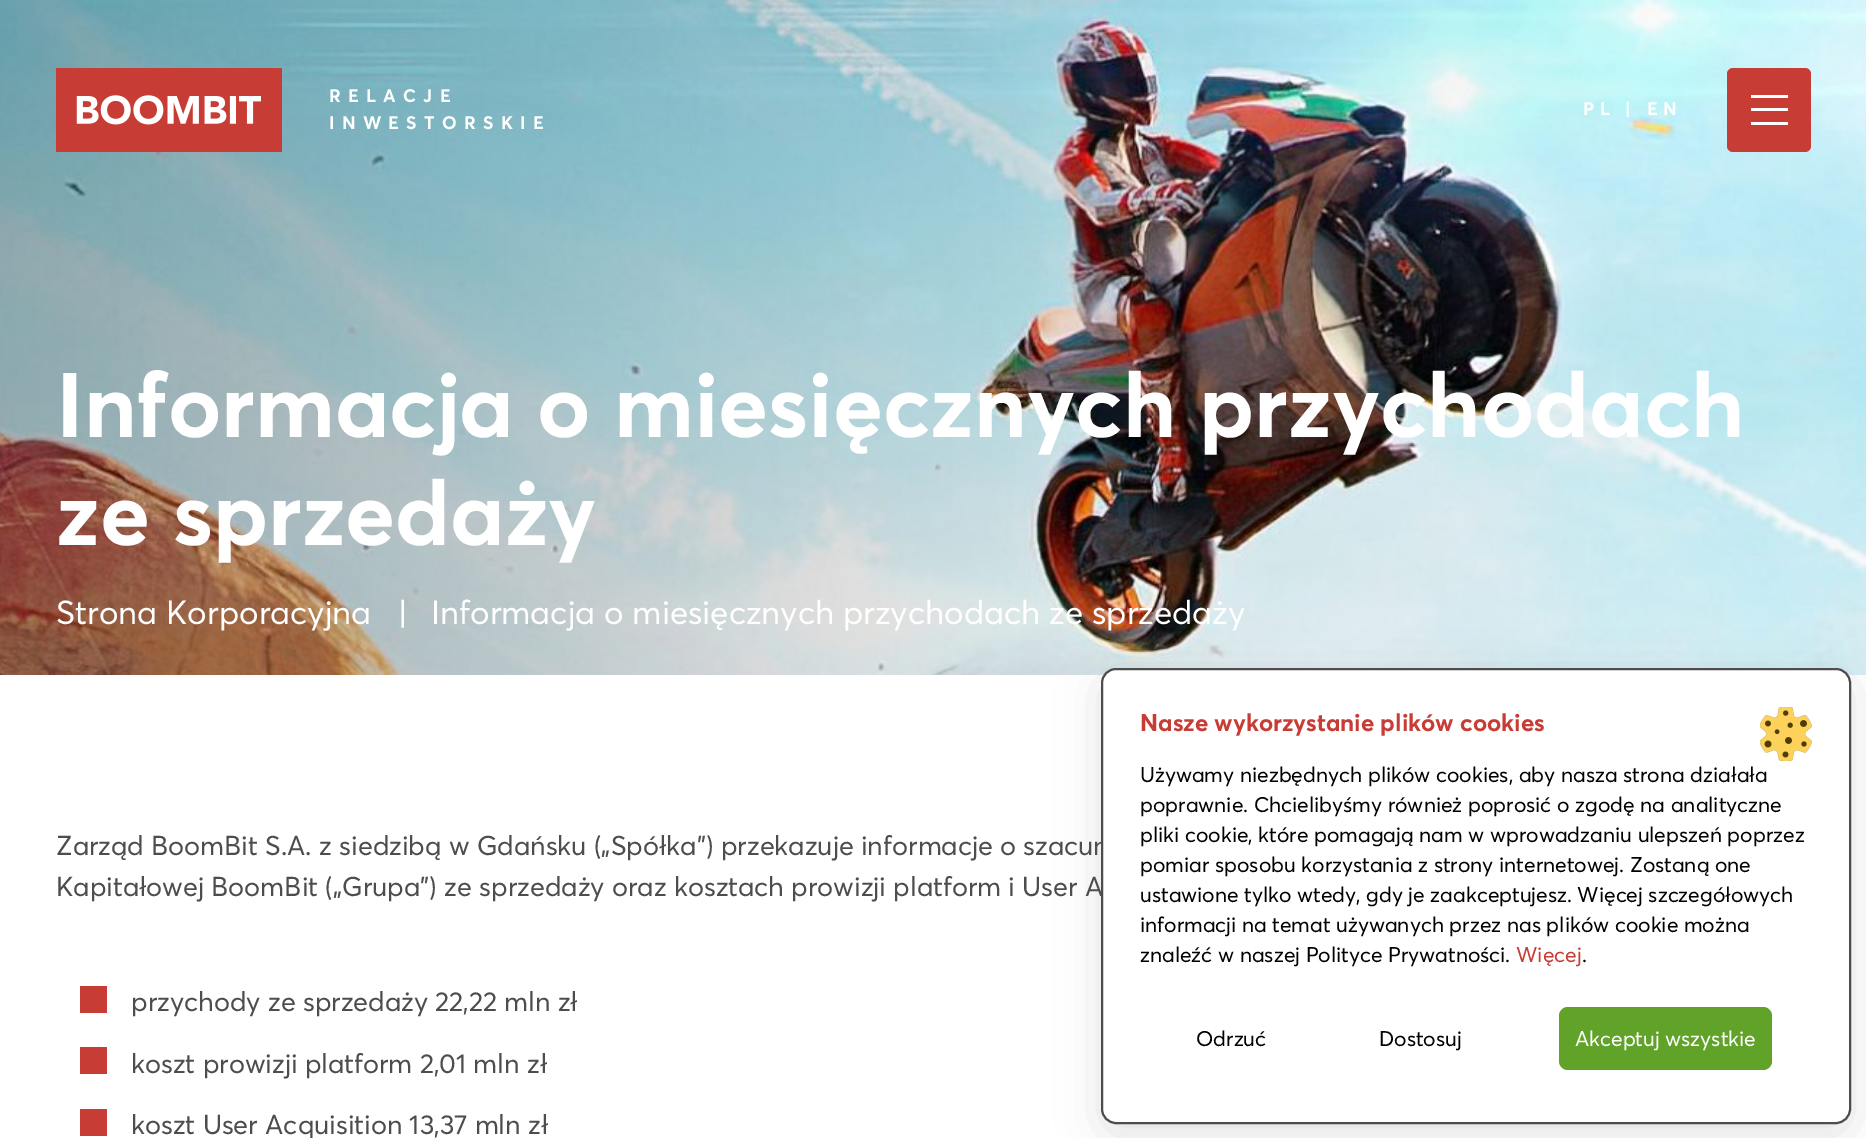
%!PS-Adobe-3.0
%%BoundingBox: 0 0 1866 1138
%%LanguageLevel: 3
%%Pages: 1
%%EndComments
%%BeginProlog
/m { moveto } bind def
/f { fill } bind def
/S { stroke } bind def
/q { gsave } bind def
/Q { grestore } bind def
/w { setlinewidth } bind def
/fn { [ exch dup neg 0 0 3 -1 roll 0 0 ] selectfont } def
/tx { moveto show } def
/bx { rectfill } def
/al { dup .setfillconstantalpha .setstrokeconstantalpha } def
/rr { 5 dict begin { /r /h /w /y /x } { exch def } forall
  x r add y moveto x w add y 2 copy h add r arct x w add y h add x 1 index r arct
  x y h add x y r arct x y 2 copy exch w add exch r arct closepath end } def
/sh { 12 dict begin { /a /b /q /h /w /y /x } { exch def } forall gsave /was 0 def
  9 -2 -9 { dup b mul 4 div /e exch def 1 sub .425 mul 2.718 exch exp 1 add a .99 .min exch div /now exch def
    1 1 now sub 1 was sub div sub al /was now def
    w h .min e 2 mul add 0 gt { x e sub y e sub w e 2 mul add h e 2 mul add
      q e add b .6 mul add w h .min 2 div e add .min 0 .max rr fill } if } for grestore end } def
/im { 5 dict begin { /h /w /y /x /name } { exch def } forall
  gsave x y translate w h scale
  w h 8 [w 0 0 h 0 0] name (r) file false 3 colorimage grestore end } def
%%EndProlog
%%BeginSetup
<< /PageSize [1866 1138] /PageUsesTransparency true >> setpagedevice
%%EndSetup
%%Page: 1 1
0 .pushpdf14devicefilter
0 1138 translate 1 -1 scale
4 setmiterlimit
1 setgray
0 0 1866 1138 bx
(image1.raw) 0 0 1866 675 im
(image0.raw) 56 68 226 84 im
/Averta-Bold 18 fn
329 102 m 7.25 0 (RELACJE) ashow
329 129 m 7.25 0 (INWESTORSKIE) ashow
1583 115 m 5.5 0 (PL | EN) ashow
0.78 0.235 0.204 setrgbcolor
1727 68 84 84 6 rr f
1 setgray
1751 95 37 3 bx
1751 108 37 3 bx
1751 122 37 3 bx
/Averta-Bold 90 fn
(Informacja o miesięcznych przychodach) 56 437 tx
(ze sprzedaży) 56 545 tx
/Averta-Regular 33 fn
(Strona Korporacyjna) 56 624 tx
(|) 398 624 tx
(Informacja o miesięcznych przychodach ze sprzedaży) 431 624 tx
/Averta-Regular 27 fn
0.302 setgray
(Zarząd BoomBit S.A. z siedzibą w Gdańsku \(„Spółka”\) przekazuje informacje o szacun) 56 855 tx
(Kapitałowej BoomBit \(„Grupa”\) ze sprzedaży oraz kosztach prowizji platform i User A) 56 896 tx
0.78 0.235 0.204 setrgbcolor
80 986 27 27 bx
0.302 setgray
(przychody ze sprzedaży 22,22 mln zł) 131 1011 tx
0.78 0.235 0.204 setrgbcolor
80 1047 27 27 bx
0.302 setgray
(koszt prowizji platform 2,01 mln zł) 131 1073 tx
0.78 0.235 0.204 setrgbcolor
80 1109 27 27 bx
0.302 setgray
(koszt User Acquisition 13,37 mln zł) 131 1134 tx
0.392 0.392 0.435 setrgbcolor
1101 678 750 456 15 22 0.2 sh
1 setgray
1102 669 748 454 14 rr q f Q
0.302 setgray
2 w
S
/Averta-Bold 24 fn
0.78 0.235 0.204 setrgbcolor
(Nasze wykorzystanie plików cookies) 1140 731 tx
(image2.raw) 1760 707 52 54 im
/Averta-Regular 21 fn
0 setgray
(Używamy niezbędnych plików cookies, aby nasza strona działała) 1140 782 tx
(poprawnie. Chcielibyśmy również poprosić o zgodę na analityczne) 1140 812 tx
(pliki cookie, które pomagają nam w wprowadzaniu ulepszeń poprzez) 1140 842 tx
(pomiar sposobu korzystania z strony internetowej. Zostaną one) 1140 872 tx
(ustawione tylko wtedy, gdy je zaakceptujesz. Więcej szczegółowych) 1140 902 tx
(informacji na temat używanych przez nas plików cookie można) 1140 932 tx
(znaleźć w naszej Polityce Prywatności.) 1140 962 tx
0.78 0.235 0.204 setrgbcolor
(Więcej) 1516 962 tx
0 setgray
(.) 1582 962 tx
(Odrzuć) 1196 1046 tx
(Dostosuj) 1379 1046 tx
0.38 0.635 0.161 setrgbcolor
1559 1007 213 63 9 rr f
1 setgray
(Akceptuj wszystkie) 1575 1046 tx
.poppdf14devicefilter showpage
%%EOF
